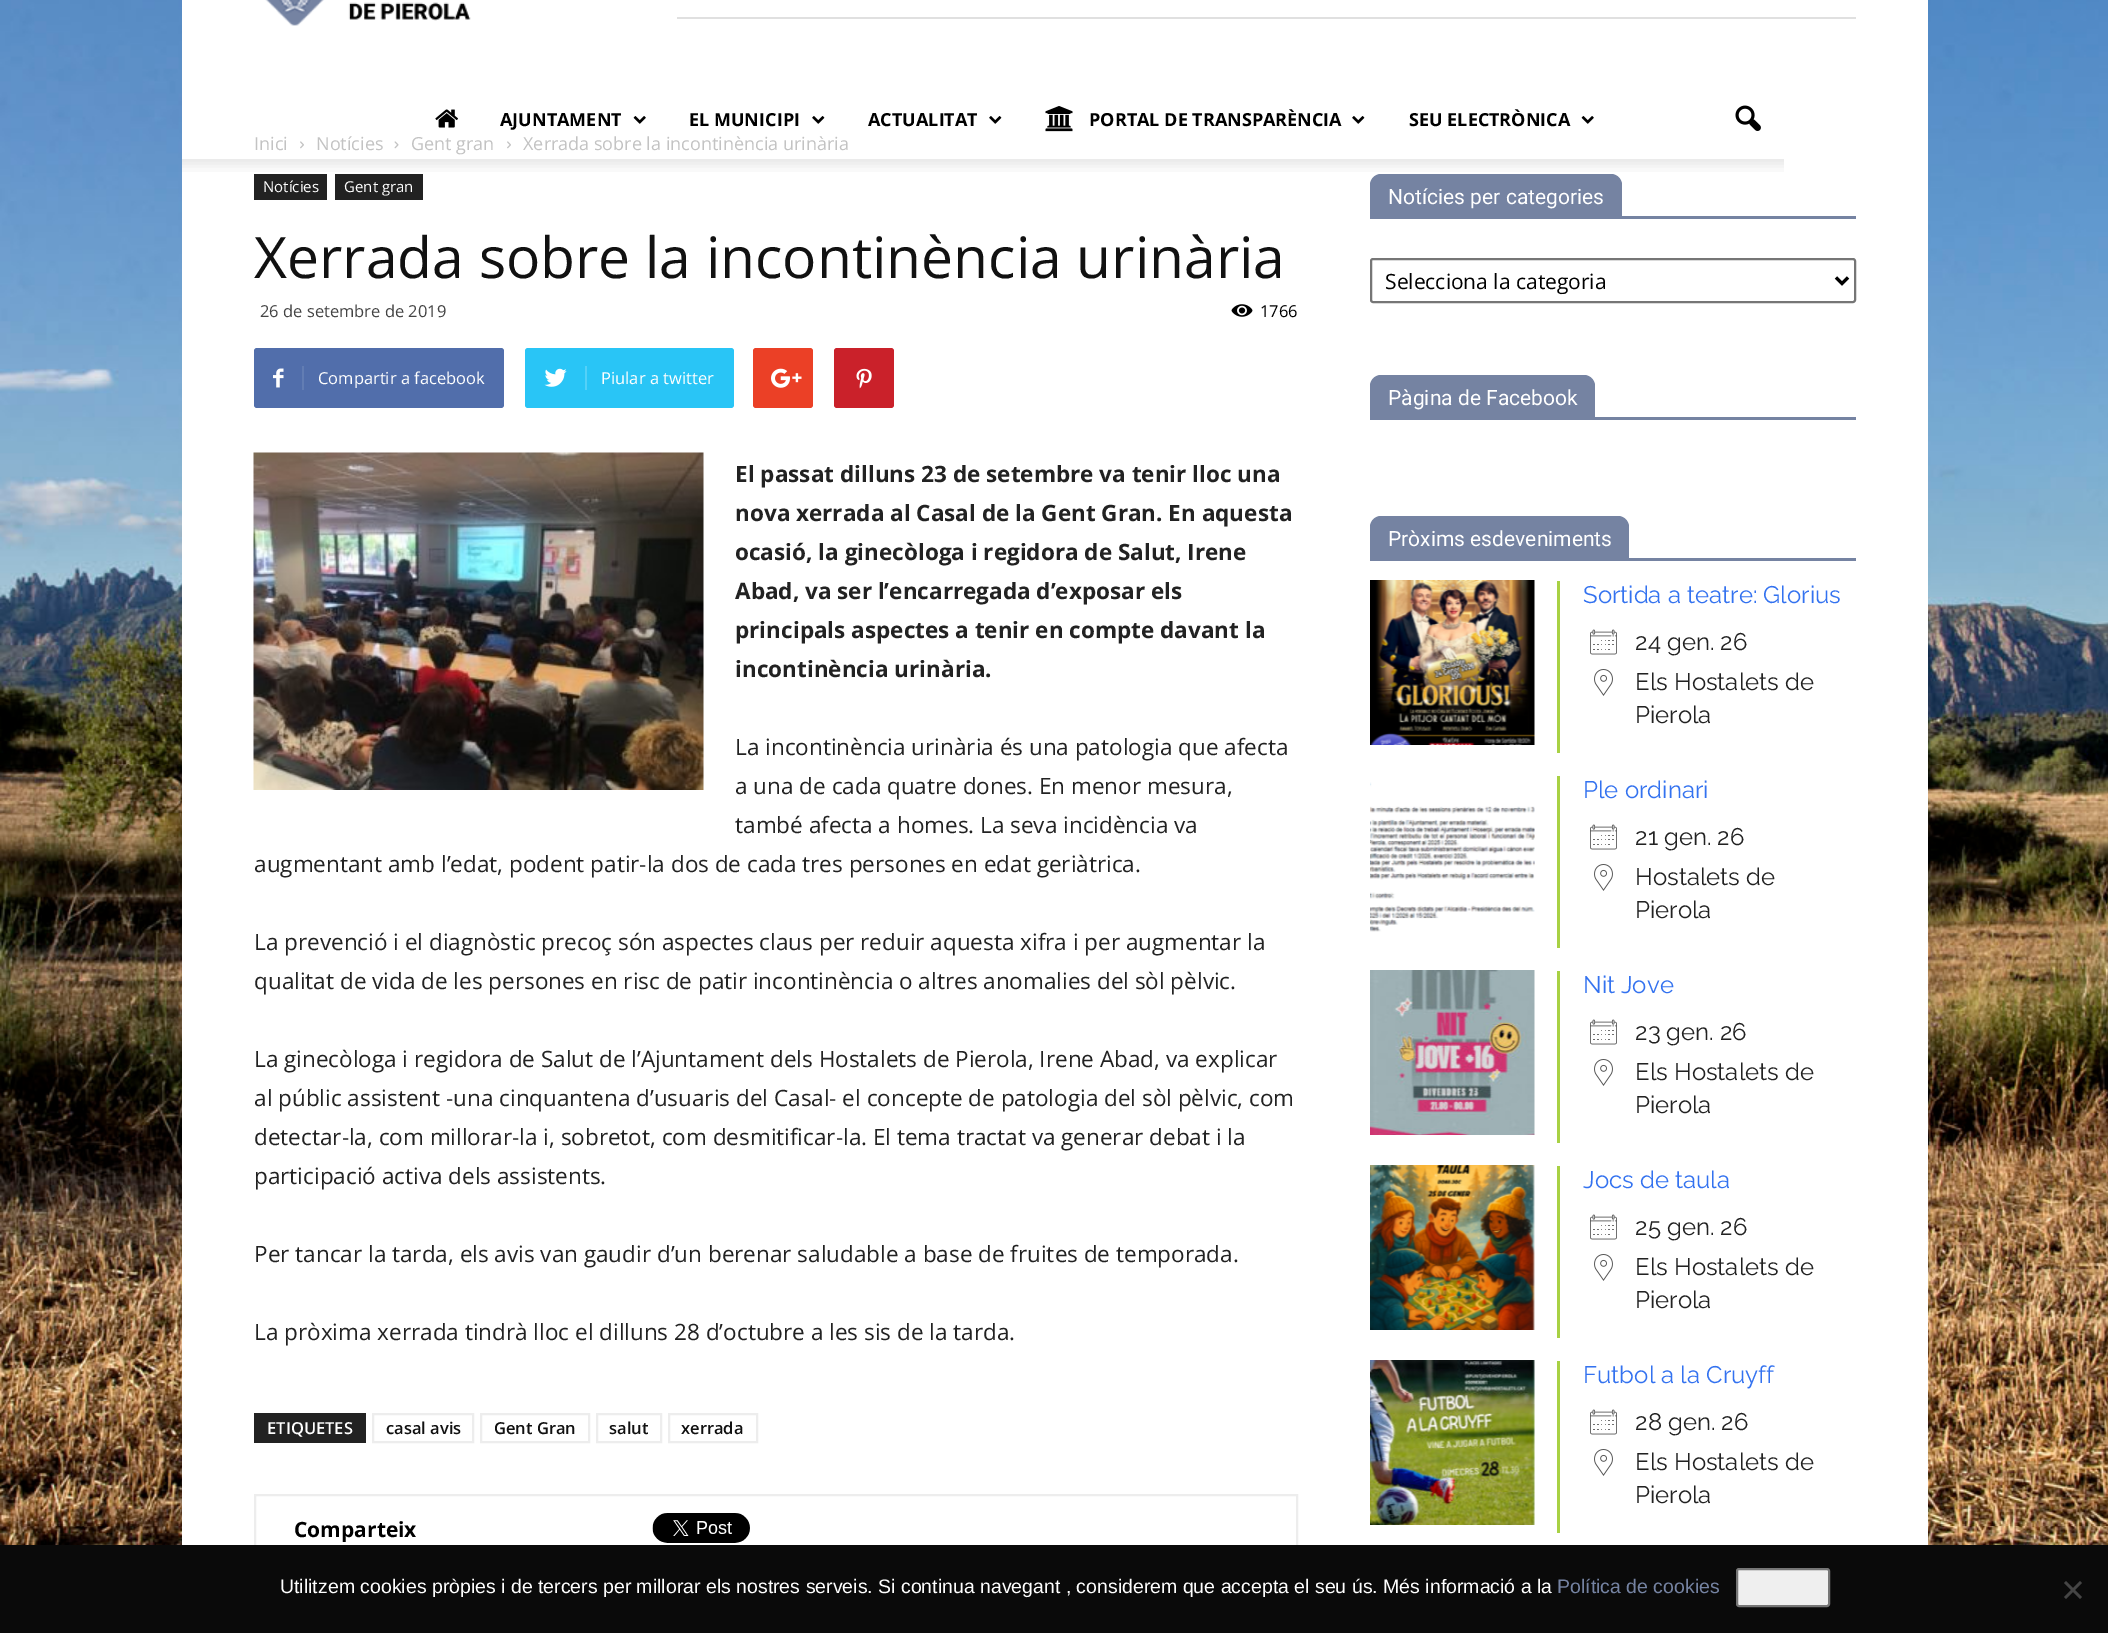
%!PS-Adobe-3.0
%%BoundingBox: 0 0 2108 1633
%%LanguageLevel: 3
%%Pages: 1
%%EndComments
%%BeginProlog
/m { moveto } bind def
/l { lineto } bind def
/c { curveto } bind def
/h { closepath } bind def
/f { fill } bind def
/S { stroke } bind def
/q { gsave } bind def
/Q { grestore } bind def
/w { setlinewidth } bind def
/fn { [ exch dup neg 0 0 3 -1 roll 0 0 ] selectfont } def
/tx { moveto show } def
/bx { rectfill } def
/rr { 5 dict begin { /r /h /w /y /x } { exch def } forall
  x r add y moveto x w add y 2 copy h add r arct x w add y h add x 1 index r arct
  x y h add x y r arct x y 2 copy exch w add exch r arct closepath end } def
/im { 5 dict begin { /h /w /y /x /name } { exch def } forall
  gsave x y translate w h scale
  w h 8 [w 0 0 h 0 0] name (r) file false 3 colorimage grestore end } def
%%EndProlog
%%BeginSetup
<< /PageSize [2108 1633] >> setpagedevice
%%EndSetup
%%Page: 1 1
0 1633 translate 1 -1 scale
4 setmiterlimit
1 setgray
0 0 2108 1633 bx
(image0.raw) 0 0 2108 1545 im
182 0 1746 1545 bx
(image1.raw) 265 0 206 26 im
0.878 setgray
677 17 1179 2 bx
(image2.raw) 435 109 23 19 im
/OpenSans-Bold 18 fn
0 setgray
(AJUNTAMENT) 500 126 tx
(image3.raw) 633 116 13 8 im
(EL MUNICIPI) 689 126 tx
(image4.raw) 812 116 13 8 im
(ACTUALITAT) 868 126 tx
(image4.raw) 989 116 13 8 im
(image5.raw) 1045 106 28 26 im
(PORTAL DE TRANSPARÈNCIA) 1089 126 tx
(image4.raw) 1352 116 13 8 im
(SEU ELECTRÒNICA) 1409 126 tx
(image3.raw) 1581 116 13 8 im
(image6.raw) 1735 105 26 26 im
(image7.raw) 182 159 1602 13 im
/OpenSans-Regular 18 fn
0.765 setgray
(Inici) 254 150 tx
(image8.raw) 300 141 4 8 im
(Notícies) 316 150 tx
(image9.raw) 394 141 5 8 im
(Gent gran) 411 150 tx
(image8.raw) 507 141 4 8 im
(Xerrada sobre la incontinència urinària) 523 150 tx
0.133 setgray
254 174 73 26 bx
/OpenSans-Regular 15 fn
1 setgray
(Notícies) 263 192 tx
0.133 setgray
335 174 88 26 bx
1 setgray
(Gent gran) 344 192 tx
/OpenSans-Regular 57 fn
0.067 setgray
(Xerrada sobre la incontinència urinària) 254 278 tx
/OpenSans-Regular 16.5 fn
0.267 setgray
(26 de setembre de 2019) 260 317 tx
(image10.raw) 1231 304 22 13 im
0 setgray
(1766) 1260 317 tx
0.318 0.431 0.671 setrgbcolor
254 348 250 60 3 rr f
(image11.raw) 273 368 11 20 im
0.384 0.49 0.702 setrgbcolor
302 366 2 24 bx
1 setgray
(Compartir a facebook) 318 384 tx
0.161 0.773 0.965 setrgbcolor
525 348 209 60 3 rr f
(image12.raw) 544 368 23 19 im
0.329 0.82 0.973 setrgbcolor
585 366 2 24 bx
1 setgray
(Piular a twitter) 601 384 tx
0.922 0.251 0.149 setrgbcolor
753 348 60 60 3 rr f
(image13.raw) 771 368 31 20 im
0.792 0.129 0.165 setrgbcolor
834 348 60 60 3 rr f
(image14.raw) 856 368 16 21 im
(image15.raw) 253 452 451 338 im
/OpenSans-Bold 22.5 fn
0.133 setgray
(El passat dilluns 23 de setembre va tenir lloc una) 735 482 tx
(nova xerrada al Casal de la Gent Gran. En aquesta) 735 521 tx
(ocasió, la ginecòloga i regidora de Salut, Irene) 735 560 tx
(Abad, va ser l’encarregada d’exposar els) 735 599 tx
(principals aspectes a tenir en compte davant la) 735 638 tx
(incontinència urinària.) 735 677 tx
/OpenSans-Regular 22.5 fn
(La incontinència urinària és una patologia que afecta) 735 755 tx
(a una de cada quatre dones. En menor mesura,) 735 794 tx
(també afecta a homes. La seva incidència va) 735 833 tx
(augmentant amb l’edat, podent patir-la dos de cada tres persones en edat geriàtrica.) 254 872 tx
(La prevenció i el diagnòstic precoç són aspectes claus per reduir aquesta xifra i per augmentar la) 254 950 tx
(qualitat de vida de les persones en risc de patir incontinència o altres anomalies del sòl pèlvic.) 254 989 tx
(La ginecòloga i regidora de Salut de l’Ajuntament dels Hostalets de Pierola, Irene Abad, va explicar) 254 1067 tx
(al públic assistent -una cinquantena d’usuaris del Casal- el concepte de patologia del sòl pèlvic, com) 254 1106 tx
(detectar-la, com millorar-la i, sobretot, com desmitificar-la. El tema tractat va generar debat i la) 254 1145 tx
(participació activa dels assistents.) 254 1184 tx
(Per tancar la tarda, els avis van gaudir d’un berenar saludable a base de fruites de temporada.) 254 1262 tx
(La pròxima xerrada tindrà lloc el dilluns 28 d’octubre a les sis de la tarda.) 254 1340 tx
254 1413 112 30 bx
/OpenSans-SemiBold 16.5 fn
1 setgray
(ETIQUETES) 267 1434 tx
0.929 setgray
2 w
373 1414 100 28 rectstroke
0.067 setgray
(casal avis) 386 1434 tx
0.929 setgray
481 1414 108 28 rectstroke
0.067 setgray
(Gent Gran) 494 1434 tx
0.929 setgray
597 1414 64 28 rectstroke
0.067 setgray
(salut) 609 1434 tx
0.929 setgray
669 1414 88 28 rectstroke
0.067 setgray
(xerrada) 681 1434 tx
0.929 setgray
255 1495 1042 66 rectstroke
/OpenSans-Bold 21 fn
0 setgray
(Comparteix) 294 1537 tx
(image16.raw) 652 1513 98 30 im
0.459 0.514 0.635 setrgbcolor
1370 216 486 3 bx
1381 174 m 1611 174 l 1617 174 1622 179 1622 185 c 1622 216 l 1370 216 l 1370 185 l 1370 179 1375 174 1381 174 c h f
/Roboto-Regular 21 fn
1 setgray
(Notícies per categories) 1388 204 tx
0.463 setgray
1371 259 484 43 2 rr S
0 setgray
3 w
1836 277.5 m 1842 283.5 l 1848 277.5 l S
/OpenSans-Regular 21 fn
(Selecciona la categoria) 1385 289 tx
0.459 0.514 0.635 setrgbcolor
1370 417 486 3 bx
1381 375 m 1584 375 l 1590 375 1595 380 1595 386 c 1595 417 l 1370 417 l 1370 386 l 1370 380 1375 375 1381 375 c h f
/Roboto-Regular 21 fn
1 setgray
(Pàgina de Facebook) 1388 405 tx
0.459 0.514 0.635 setrgbcolor
1370 558 486 3 bx
1381 516 m 1618 516 l 1624 516 1629 521 1629 527 c 1629 558 l 1370 558 l 1370 527 l 1370 521 1375 516 1381 516 c h f
1 setgray
(Pròxims esdeveniments) 1388 546 tx
(image17.raw) 1370 580 165 165 im
0.659 0.82 0.267 setrgbcolor
1557 581 3 172 bx
/Raleway-Regular 24 fn
0.2 0.447 0.941 setrgbcolor
(Sortida a teatre: Glorius) 1583 603 tx
(image18.raw) 1590 629 27 26 im
0.133 setgray
(24 gen. 26) 1635 650 tx
(image19.raw) 1594 669 19 27 im
(Els Hostalets de) 1635 690 tx
(Pierola) 1635 723 tx
(image20.raw) 1370 782 165 150 im
0.659 0.82 0.267 setrgbcolor
1557 776 3 172 bx
0.2 0.447 0.941 setrgbcolor
(Ple ordinari) 1583 798 tx
(image18.raw) 1590 824 27 26 im
0.133 setgray
(21 gen. 26) 1635 845 tx
(image19.raw) 1594 864 19 27 im
(Hostalets de) 1635 885 tx
(Pierola) 1635 918 tx
(image21.raw) 1370 970 165 165 im
0.659 0.82 0.267 setrgbcolor
1557 971 3 172 bx
0.2 0.447 0.941 setrgbcolor
(Nit Jove) 1583 993 tx
(image18.raw) 1590 1019 27 26 im
0.133 setgray
(23 gen. 26) 1635 1040 tx
(image19.raw) 1594 1059 19 27 im
(Els Hostalets de) 1635 1080 tx
(Pierola) 1635 1113 tx
(image22.raw) 1370 1165 165 165 im
0.659 0.82 0.267 setrgbcolor
1557 1166 3 172 bx
0.2 0.447 0.941 setrgbcolor
(Jocs de taula) 1583 1188 tx
(image18.raw) 1590 1214 27 26 im
0.133 setgray
(25 gen. 26) 1635 1235 tx
(image19.raw) 1594 1254 19 27 im
(Els Hostalets de) 1635 1275 tx
(Pierola) 1635 1308 tx
(image23.raw) 1370 1360 165 165 im
0.659 0.82 0.267 setrgbcolor
1557 1361 3 172 bx
0.2 0.447 0.941 setrgbcolor
(Futbol a la Cruyff) 1583 1383 tx
(image18.raw) 1590 1409 27 26 im
0.133 setgray
(28 gen. 26) 1635 1430 tx
(image19.raw) 1594 1449 19 27 im
(Els Hostalets de) 1635 1470 tx
(Pierola) 1635 1503 tx
0.039 setgray
0 1545 2108 88 bx
/LiberationSans-Regular 19.5 fn
1 setgray
(Utilitzem cookies pròpies i de tercers per millorar els nostres serveis. Si continua navegant , considerem que accepta el seu ús. Més informació a la) 280 1593 tx
0.459 0.514 0.635 setrgbcolor
(Política de cookies) 1557 1593 tx
0.937 setgray
1737 1569 92 37 2 rr q f Q
0.463 setgray
2 w
S
0.271 setgray
2080 1581 m 2082 1583 l 2066 1599 l 2064 1597 l h f
2064 1583 m 2066 1581 l 2082 1597 l 2080 1599 l h f
showpage
%%EOF
